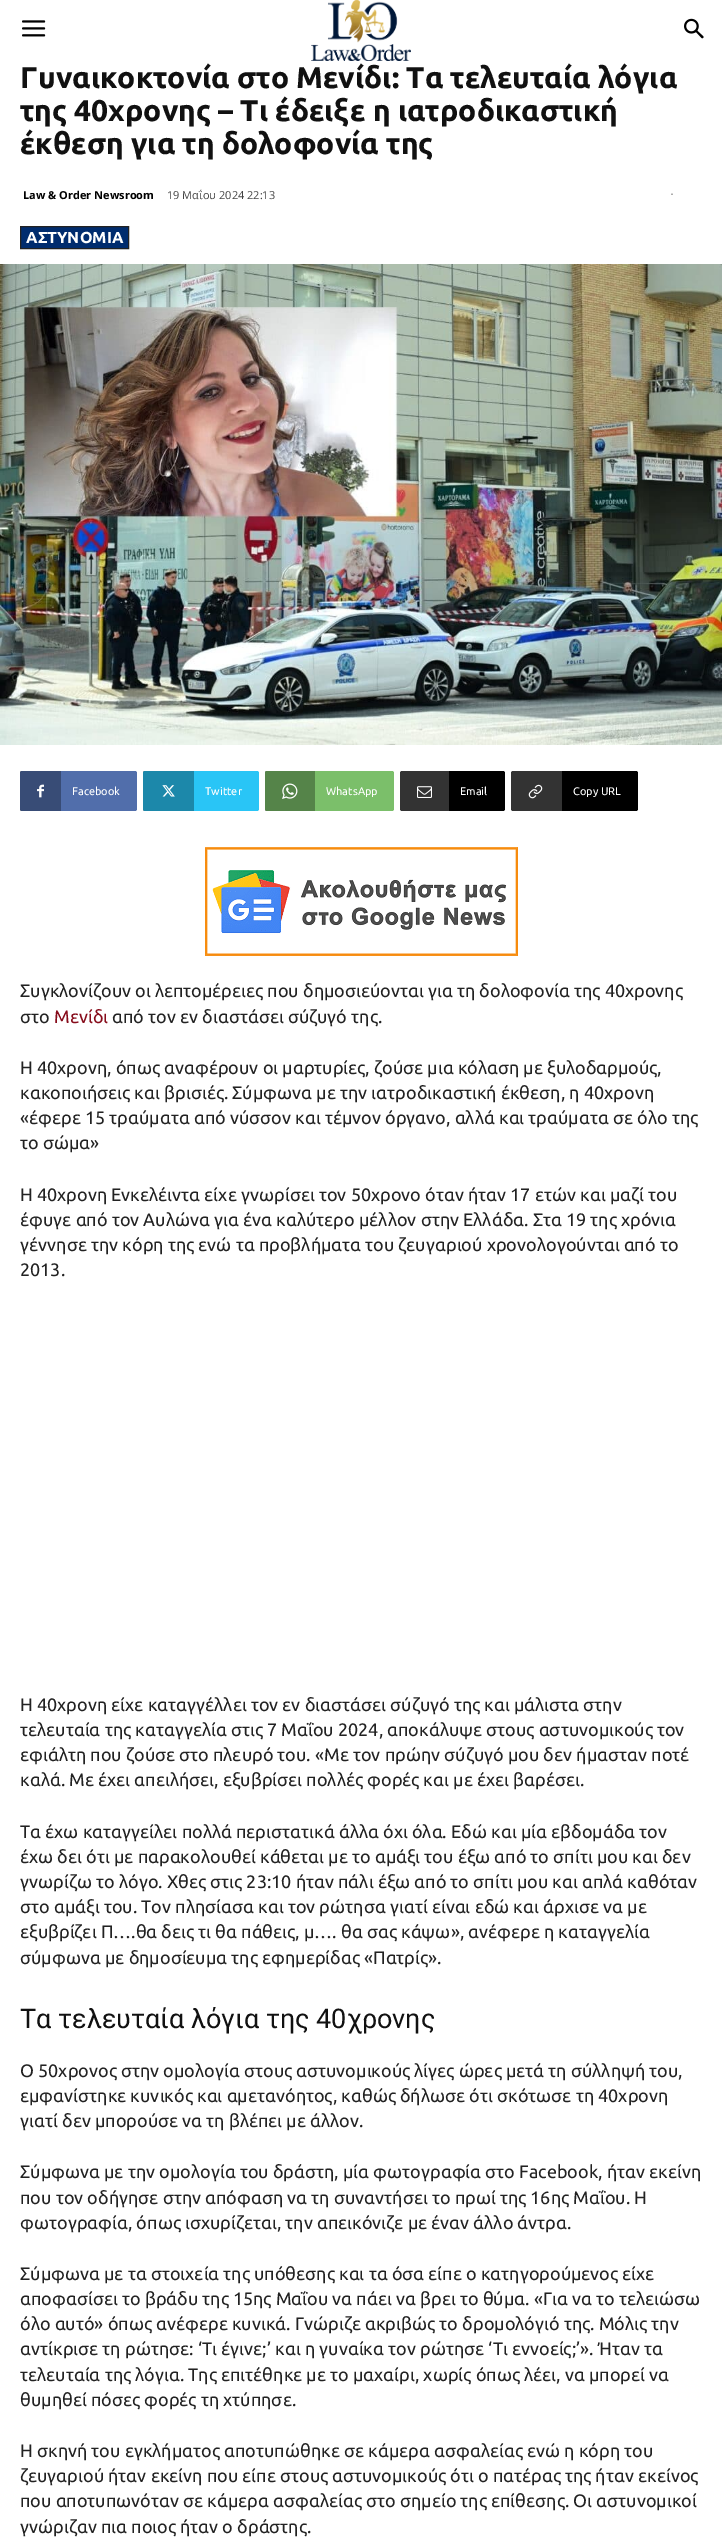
%!PS-Adobe-3.0
%%BoundingBox: 0 0 722 2543
%%LanguageLevel: 3
%%Pages: 1
%%EndComments
%%BeginProlog
/m { moveto } bind def
/l { lineto } bind def
/c { curveto } bind def
/h { closepath } bind def
/f { fill } bind def
/S { stroke } bind def
/q { gsave } bind def
/Q { grestore } bind def
/fn { [ exch dup neg 0 0 3 -1 roll 0 0 ] selectfont } def
/tx { moveto show } def
/bx { rectfill } def
/im { 5 dict begin { /h /w /y /x /name } { exch def } forall
  gsave x y translate w h scale
  w h 8 [w 0 0 h 0 0] name (r) file false 3 colorimage grestore end } def
%%EndProlog
%%BeginSetup
<< /PageSize [722 2543] >> setpagedevice
%%EndSetup
%%Page: 1 1
0 2543 translate 1 -1 scale
4 setmiterlimit
1 setgray
0 0 722 2543 bx
0.69 setgray
265 771 2 40 bx
143 771 2 40 bx
20 771 2 40 bx
(image0.raw) 22 20 24 17 im
(image1.raw) 311 0 100 61 im
(image2.raw) 684 18 20 21 im
/Ubuntu-Bold 30 fn
0.067 setgray
(Γυναικοκτονία στο Μενίδι: Τα τελευταία λόγια) 20 88 tx
(της 40χρονης – Τι έδειξε η ιατροδικαστική) 20 121 tx
(έκθεση για τη δολοφονία της) 20 154 tx
/OpenSans-Bold 11 fn
0 setgray
(Law & Order Newsroom) 23 199 tx
/OpenSans-Regular 11 fn
0.267 setgray
(19 Μαΐου 2024 22:13) 167 199 tx
(image3.raw) 671 193 2 2 im
0 0.173 0.431 setrgbcolor
20.5 226.5 m 128.5 226.5 l 128.5 248.5 l 20.5 248.5 l h q f Q
0.133 setgray
S
/Ubuntu-Bold 16 fn
1 setgray
(ΑΣΤΥΝΟΜΙΑ) 26 243 tx
(image4.raw) 0 264 722 481 im
0.318 0.431 0.671 setrgbcolor
55 771 m 135 771 l 136 771 137 772 137 773 c 137 809 l 137 810 136 811 135 811 c 55 811 l h f
0.22 0.298 0.463 setrgbcolor
22 771 m 61 771 l 61 811 l 22 811 l 21 811 20 810 20 809 c 20 773 l 20 772 21 771 22 771 c h f
(image5.raw) 37 784 7 14 im
/Ubuntu-Regular 11 fn
1 setgray
(Facebook) 72 795 tx
0.161 0.773 0.965 setrgbcolor
188 771 m 257 771 l 258 771 259 772 259 773 c 259 809 l 259 810 258 811 257 811 c 188 811 l h f
0.11 0.533 0.667 setrgbcolor
145 771 m 194 771 l 194 811 l 145 811 l 144 811 143 810 143 809 c 143 773 l 143 772 144 771 145 771 c h f
(image6.raw) 162 785 13 12 im
1 setgray
(Twitter) 205 795 tx
0.482 0.749 0.416 setrgbcolor
309 771 m 392 771 l 393 771 394 772 394 773 c 394 809 l 394 810 393 811 392 811 c 309 811 l h f
0.333 0.518 0.286 setrgbcolor
267 771 m 315 771 l 315 811 l 267 811 l 266 811 265 810 265 809 c 265 773 l 265 772 266 771 267 771 c h f
(image7.raw) 282 783 16 16 im
1 setgray
(WhatsApp) 326 795 tx
0 setgray
443 771 m 503 771 l 504 771 505 772 505 773 c 505 809 l 505 810 504 811 503 811 c 443 811 l h f
0.2 setgray
402 771 m 449 771 l 449 811 l 402 811 l 401 811 400 810 400 809 c 400 773 l 400 772 401 771 402 771 c h f
(image8.raw) 417 786 15 12 im
1 setgray
(Email) 460 795 tx
0 setgray
556 771 m 636 771 l 637 771 638 772 638 773 c 638 809 l 638 810 637 811 636 811 c 556 811 l h f
0.2 setgray
513 771 m 562 771 l 562 811 l 513 811 l 512 811 511 810 511 809 c 511 773 l 511 772 512 771 513 771 c h f
(image9.raw) 528 784 15 15 im
1 setgray
(Copy URL) 573 795 tx
(image10.raw) 205 847 313 109 im
/Ubuntu-Regular 18 fn
0.133 setgray
(Συγκλονίζουν οι λεπτομέρειες που δημοσιεύονται για τη δολοφονία της 40χρονης) 20 997 tx
(στο) 20 1023 tx
0.529 0.047 0.106 setrgbcolor
(Μενίδι) 54 1023 tx
0.133 setgray
(από τον εν διαστάσει σύζυγό της.) 112 1023 tx
(Η 40χρονη, όπως αναφέρουν οι μαρτυρίες, ζούσε μια κόλαση με ξυλοδαρμούς,) 20 1074 tx
(κακοποιήσεις και βρισιές. Σύμφωνα με την ιατροδικαστική έκθεση, η 40χρονη) 20 1099 tx
(«έφερε 15 τραύματα από νύσσον και τέμνον όργανο, αλλά και τραύματα σε όλο της) 20 1124 tx
(το σώμα») 20 1149 tx
(Η 40χρονη Ενκελέιντα είχε γνωρίσει τον 50χρονο όταν ήταν 17 ετών και μαζί του) 20 1201 tx
(έφυγε από τον Αυλώνα για ένα καλύτερο μέλλον στην Ελλάδα. Στα 19 της χρόνια) 20 1226 tx
(γέννησε την κόρη της ενώ τα προβλήματα του ζευγαριού χρονολογούνται από το) 20 1251 tx
(2013.) 20 1276 tx
(Η 40χρονη είχε καταγγέλλει τον εν διαστάσει σύζυγό της και μάλιστα στην) 20 1711 tx
(τελευταία της καταγγελία στις 7 Μαΐου 2024, αποκάλυψε στους αστυνομικούς τον) 20 1736 tx
(εφιάλτη που ζούσε στο πλευρό του. «Με τον πρώην σύζυγό μου δεν ήμασταν ποτέ) 20 1761 tx
(καλά. Με έχει απειλήσει, εξυβρίσει πολλές φορές και με έχει βαρέσει.) 20 1786 tx
(Τα έχω καταγγείλει πολλά περιστατικά άλλα όχι όλα. Εδώ και μία εβδομάδα τον) 20 1838 tx
(έχω δει ότι με παρακολουθεί κάθεται με το αμάξι του έξω από το σπίτι μου και δεν) 20 1863 tx
(γνωρίζω το λόγο. Χθες στις 23:10 ήταν πάλι έξω από το σπίτι μου και απλά καθόταν) 20 1888 tx
(στο αμάξι του. Τον πλησίασα και τον ρώτησα γιατί είναι εδώ και άρχισε να με) 20 1913 tx
(εξυβρίζει Π….θα δεις τι θα πάθεις, μ…. θα σας κάψω», ανέφερε η καταγγελία) 20 1938 tx
(σύμφωνα με δημοσίευμα της εφημερίδας «Πατρίς».) 20 1964 tx
/Roboto-Regular 27 fn
0.067 setgray
(Τα τελευταία λόγια της 40χρονης) 20 2028 tx
/Ubuntu-Regular 18 fn
0.133 setgray
(Ο 50χρονος στην ομολογία στους αστυνομικούς λίγες ώρες μετά τη σύλληψή του,) 20 2077 tx
(εμφανίστηκε κυνικός και αμετανόητος, καθώς δήλωσε ότι σκότωσε τη 40χρονη) 20 2102 tx
(γιατί δεν μπορούσε να τη βλέπει με άλλον.) 20 2127 tx
(Σύμφωνα με την ομολογία του δράστη, μία φωτογραφία στο Facebook, ήταν εκείνη) 20 2178 tx
(που τον οδήγησε στην απόφαση να τη συναντήσει το πρωί της 16ης Μαΐου. Η) 20 2204 tx
(φωτογραφία, όπως ισχυρίζεται, την απεικόνιζε με έναν άλλο άντρα.) 20 2229 tx
(Σύμφωνα με τα στοιχεία της υπόθεσης και τα όσα είπε ο κατηγορούμενος είχε) 20 2280 tx
(αποφασίσει το βράδυ της 15ης Μαΐου να πάει να βρει το θύμα. «Για να το τελειώσω) 20 2305 tx
(όλο αυτό» όπως ανέφερε κυνικά. Γνώριζε ακριβώς το δρομολόγιό της. Μόλις την) 20 2330 tx
(αντίκρισε τη ρώτησε: ‘Τι έγινε;’ και η γυναίκα τον ρώτησε ‘Τι εννοείς;’». Ήταν τα) 20 2355 tx
(τελευταία της λόγια. Της επιτέθηκε με το μαχαίρι, χωρίς όπως λέει, να μπορεί να) 20 2381 tx
(θυμηθεί πόσες φορές τη χτύπησε.) 20 2406 tx
(Η σκηνή του εγκλήματος αποτυπώθηκε σε κάμερα ασφαλείας ενώ η κόρη του) 20 2457 tx
(ζευγαριού ήταν εκείνη που είπε στους αστυνομικούς ότι ο πατέρας της ήταν εκείνος) 20 2482 tx
(που αποτυπωνόταν σε κάμερα ασφαλείας στο σημείο της επίθεσης. Οι αστυνομικοί) 20 2507 tx
(γνώριζαν πια ποιος ήταν ο δράστης.) 20 2533 tx
showpage
%%EOF
